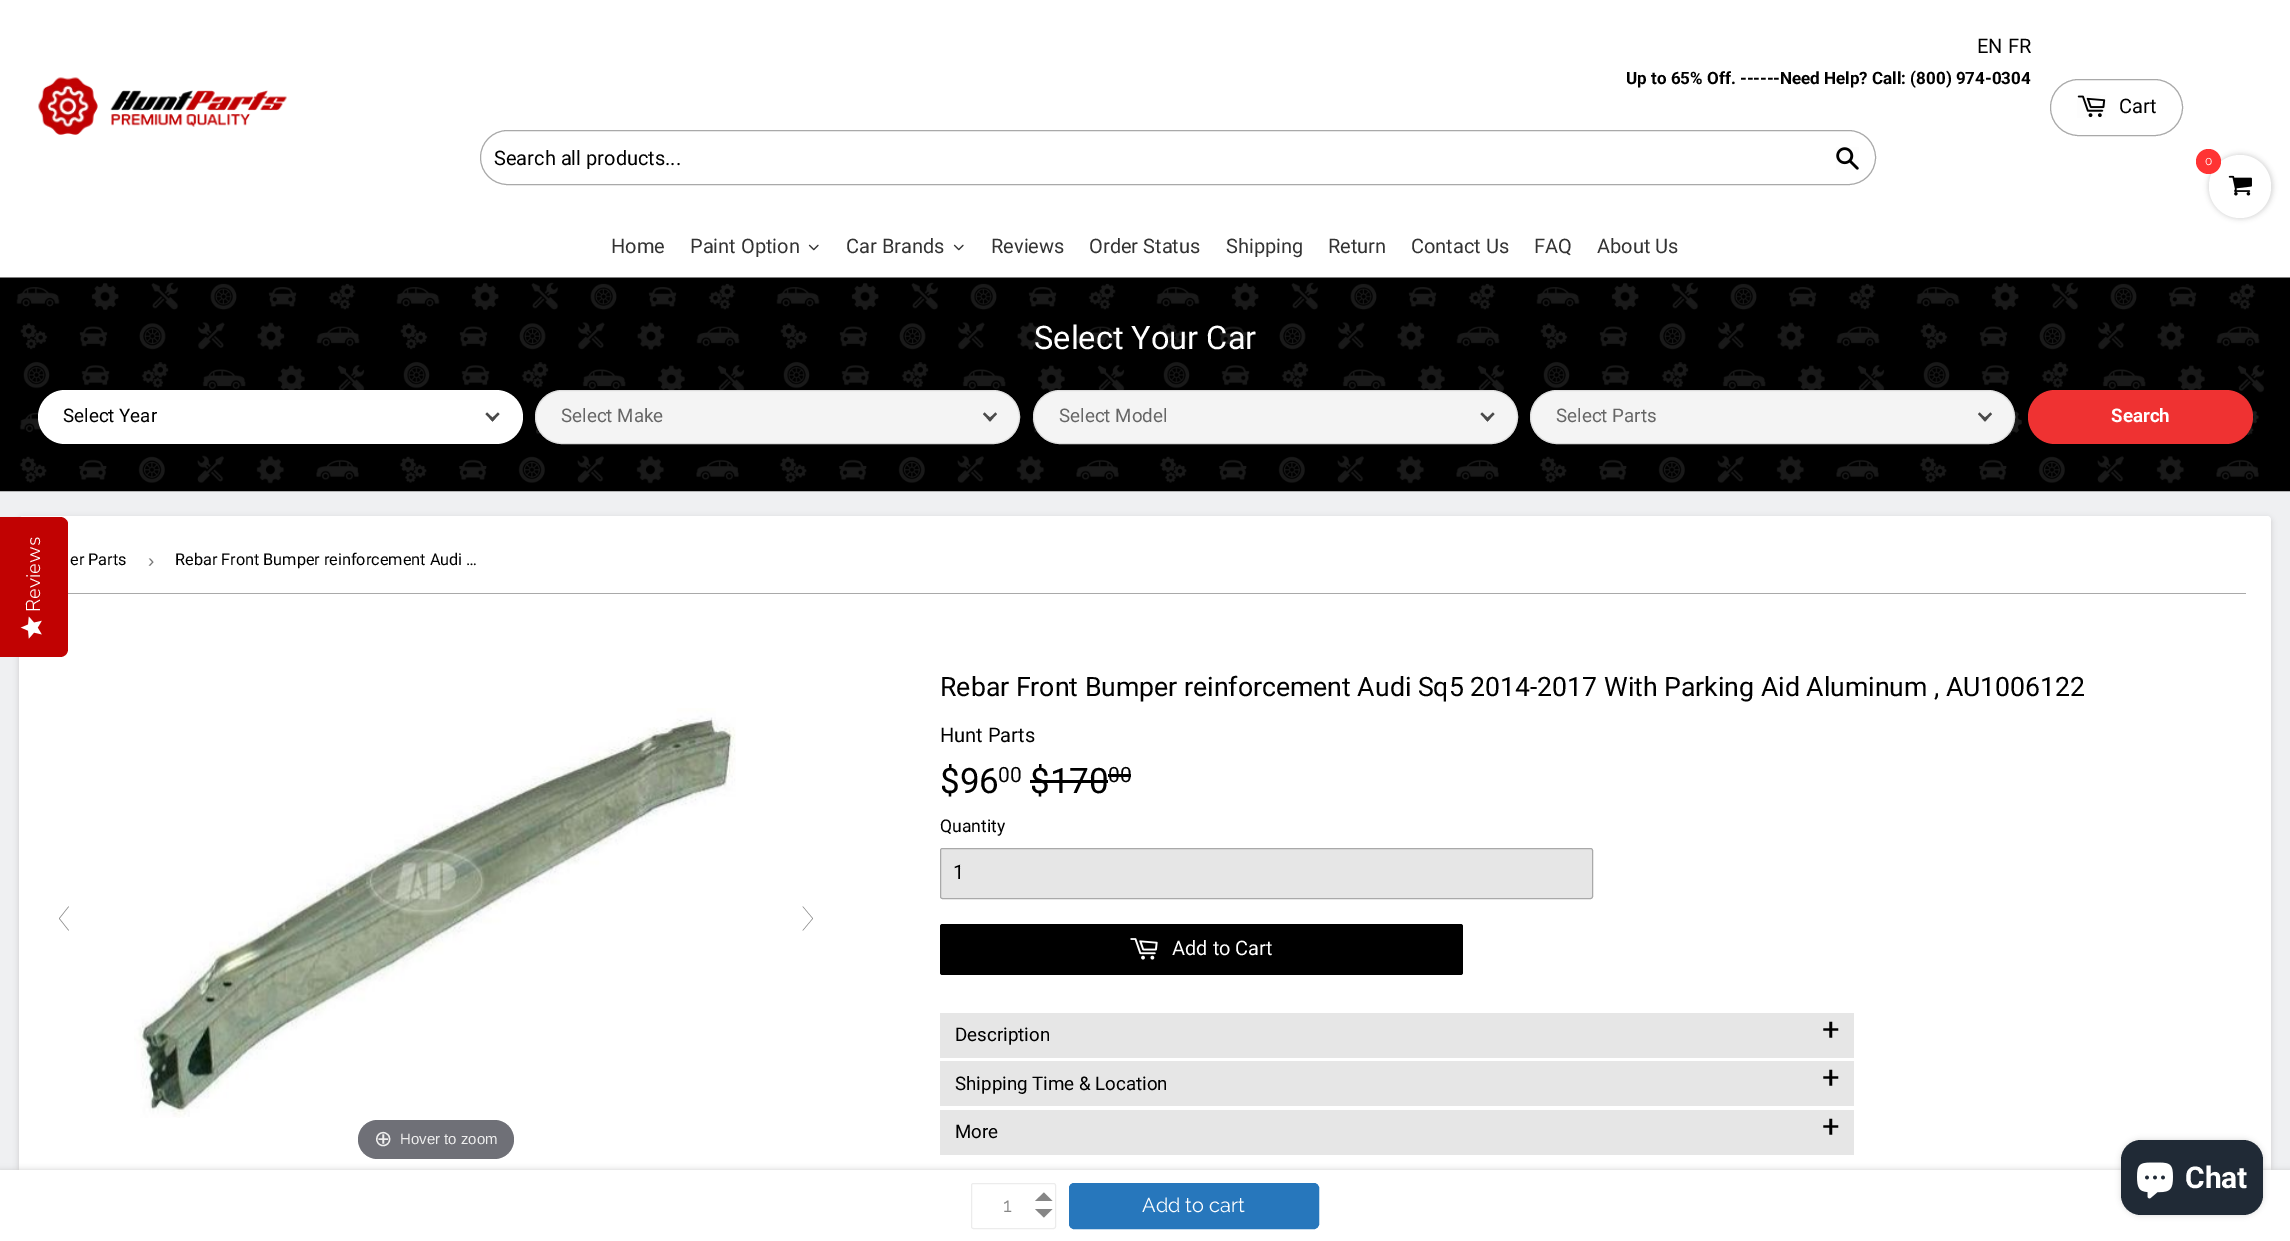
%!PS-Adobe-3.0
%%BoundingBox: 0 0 2290 1241
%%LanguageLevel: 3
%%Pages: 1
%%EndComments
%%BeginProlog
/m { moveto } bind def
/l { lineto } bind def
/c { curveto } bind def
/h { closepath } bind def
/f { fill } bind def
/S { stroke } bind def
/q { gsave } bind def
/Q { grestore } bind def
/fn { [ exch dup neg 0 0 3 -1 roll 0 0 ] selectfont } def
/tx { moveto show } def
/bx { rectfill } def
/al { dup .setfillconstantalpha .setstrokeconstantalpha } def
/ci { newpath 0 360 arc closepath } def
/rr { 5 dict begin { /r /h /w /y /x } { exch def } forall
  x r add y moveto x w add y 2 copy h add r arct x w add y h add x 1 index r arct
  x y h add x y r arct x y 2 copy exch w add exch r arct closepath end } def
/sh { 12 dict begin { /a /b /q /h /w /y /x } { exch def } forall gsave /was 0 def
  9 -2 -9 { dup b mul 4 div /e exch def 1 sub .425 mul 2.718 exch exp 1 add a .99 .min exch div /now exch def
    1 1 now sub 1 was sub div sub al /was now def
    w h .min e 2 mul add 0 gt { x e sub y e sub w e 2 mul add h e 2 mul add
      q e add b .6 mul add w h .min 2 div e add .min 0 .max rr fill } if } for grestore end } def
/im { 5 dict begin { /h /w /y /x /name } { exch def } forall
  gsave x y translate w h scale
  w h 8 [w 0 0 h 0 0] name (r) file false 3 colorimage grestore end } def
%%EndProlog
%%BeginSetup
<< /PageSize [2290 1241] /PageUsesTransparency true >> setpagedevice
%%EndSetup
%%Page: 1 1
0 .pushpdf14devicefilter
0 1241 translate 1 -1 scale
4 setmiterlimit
1 setgray
0 0 2290 1241 bx
(image0.raw) 38 77 249 58 im
/Roboto-Regular 20 fn
0 setgray
(EN FR) 1977 53 tx
/Roboto-Bold 17 fn
(Up to 65% Off. ------Need Help? Call: \(800\) 974-0304) 1626 84 tx
0.663 setgray
480.5 130.5 1395 54 27 rr S
/Roboto-Regular 20 fn
0 setgray
(Search all products...) 494 165 tx
(image1.raw) 1836 147 23 23 im
0.663 setgray
2050.5 79.5 132 56 28 rr S
(image2.raw) 2077 95 29 23 im
0 setgray
(Cart) 2119 113 tx
0.2 setgray
(Home) 611 253 tx
(Paint Option) 690 253 tx
(image3.raw) 808 244 11 7 im
(Car Brands) 846 253 tx
(image3.raw) 953 244 11 7 im
(Reviews) 991 253 tx
(Order Status) 1089 253 tx
(Shipping) 1226 253 tx
(Return) 1328 253 tx
(Contact Us) 1411 253 tx
(FAQ) 1534 253 tx
(About Us) 1597 253 tx
0.012 setgray
2208 154 65 65 32.5 2.5 0.15 sh
1 setgray
2209 155 62 63 31 rr f
1 0.2 0.2 setrgbcolor
2208.5 161.5 12.5 ci f
/Raleway-Thin 12 fn
1 setgray
(0) 2205 165 tx
(image4.raw) 2228 175 24 21 im
0.937 0.941 0.949 setrgbcolor
0 491 2290 679 bx
0 setgray
19 518 2252 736 4 3 0.15 sh
1 setgray
19 516 2252 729 4 rr f
0.757 0.008 0.008 setrgbcolor
0 657 m 0 517 l 60 517 l 64 517 68 520 68 524 c 68 649 l 68 654 64 657 60 657 c h f
/NunitoSans-Light 20 fn
1 setgray
q 40 612 translate -90 rotate 0 0 m (Reviews) show Q
(image5.raw) 20 616 22 23 im
(image6.raw) 0 277 2290 215 im
/Roboto-Regular 32.5 fn
(Select Your Car) 1034 349 tx
38 390 485 54 27 rr f
/Roboto-Regular 18.75 fn
0 setgray
(Select Year) 63 422 tx
0.29 setgray
498 412.5 m 499.5 414 l 492.5 421.5 l 490.5 419.5 l h f
487 412.5 m 494.5 419.5 l 492.5 421.5 l 485.5 414 l h f
0.957 setgray
535.5 390.5 484 53 26.5 rr q f Q
0.867 setgray
S
0.4 setgray
(Select Make) 561 422 tx
0.29 setgray
995.5 412.5 m 997 414 l 990 421.5 l 988 419.5 l h f
984.5 412.5 m 992 419.5 l 990 421.5 l 983 414 l h f
0.957 setgray
1033.5 390.5 484 53 26.5 rr q f Q
0.867 setgray
S
0.4 setgray
(Select Model) 1059 422 tx
0.29 setgray
1493 412.5 m 1494.5 414 l 1487.5 421.5 l 1485.5 419.5 l h f
1482 412.5 m 1489.5 419.5 l 1487.5 421.5 l 1480.5 414 l h f
0.957 setgray
1530.5 390.5 484 53 26.5 rr q f Q
0.867 setgray
S
0.4 setgray
(Select Parts) 1556 422 tx
0.29 setgray
1990.5 412.5 m 1992 414 l 1985 421.5 l 1983 419.5 l h f
1979.5 412.5 m 1987 419.5 l 1985 421.5 l 1978 414 l h f
0.937 0.196 0.196 setrgbcolor
2028 390 225 54 27 rr f
/Roboto-Bold 18.75 fn
1 setgray
(Search) 2111 422 tx
0.663 setgray
68 593 2178 1 bx
/Roboto-Regular 16.25 fn
0 setgray
(er Parts) 70 565 tx
/LiberationSans-Regular 18.75 fn
0.463 setgray
(›) 148 567 tx
/Roboto-Regular 16.25 fn
0 setgray
(Rebar Front Bumper reinforcement Audi …) 175 565 tx
0.502 setgray
59 918.5 m 68.5 906.5 l 69 906.5 l 59.5 918.5 l 69 930.5 l 68.5 930.5 l h f
813 918.5 m 803 930.5 l 802.5 930.5 l 812.5 918.5 l 802.5 906.5 l 803 906.5 l h f
(image7.raw) 134 708 602 410 im
0.435 0.439 0.467 setrgbcolor
358 1120 156 39 19.5 rr f
/DejaVuSans-Regular 22 fn
0.933 setgray
(⊕) 374 1146 tx
/LiberationSans-Regular 15 fn
(Hover to zoom) 400 1144 tx
/Roboto-Regular 26.65 fn
0 setgray
(Rebar Front Bumper reinforcement Audi Sq5 2014-2017 With Parking Aid Aluminum , AU1006122) 940 696 tx
/Roboto-Regular 20 fn
(Hunt Parts) 940 742 tx
/Roboto-Regular 35 fn
($96) 940 793 tx
/Roboto-Regular 21 fn
(00) 998 782 tx
/Roboto-Regular 35 fn
($170) 1030 793 tx
1030 780 78 3 bx
/Roboto-Regular 21 fn
(00) 1108 782 tx
1108 774 23 3 bx
/Roboto-Regular 17.5 fn
(Quantity) 940 832 tx
0.902 setgray
940.5 848.5 652 50 2 rr q f Q
0.663 setgray
S
/Roboto-Regular 20 fn
0 setgray
(1) 953 879 tx
940 924 523 51 2.5 rr f
(image8.raw) 1130 938 28 22 im
1 setgray
(Add to Cart) 1172 955 tx
0.902 setgray
940 1013 914 45 bx
/Roboto-Regular 18.75 fn
0 setgray
(Description) 955 1041 tx
/Roboto-Regular 31 fn
(+) 1822 1040 tx
0.902 setgray
940 1061 914 45 bx
/Roboto-Regular 18.75 fn
0 setgray
(Shipping Time & Location) 955 1090 tx
/Roboto-Regular 31 fn
(+) 1822 1088 tx
0.902 setgray
940 1110 914 45 bx
/Roboto-Regular 18.75 fn
0 setgray
(More) 955 1138 tx
/Roboto-Regular 31 fn
(+) 1822 1137 tx
0.804 setgray
0 1170 2290 71 0 3 1 sh
1 setgray
0 1170 2290 71 bx
0 setgray
2121 1140 142 75 20 3 0.15 sh
0.125 0.165 0.212 setrgbcolor
2121 1140 142 75 20 rr f
(image9.raw) 2137 1162 36 37 im
/Roboto-Bold 30 fn
1 setgray
(Chat) 2185 1188 tx
0.925 setgray
971.5 1183.5 84 45 2 rr S
/Raleway-Thin 20 fn
0.525 setgray
(1) 1003 1212 tx
1052.5 1201 m 1035 1201 l 1044 1192.5 l h 1035 1209 m 1052.5 1209 l 1044 1217.5 l h f
0.153 0.467 0.737 setrgbcolor
1069.5 1183.5 249 45 4.5 rr q f Q
S
1 setgray
(Add to cart) 1142 1212 tx
.poppdf14devicefilter showpage
%%EOF
